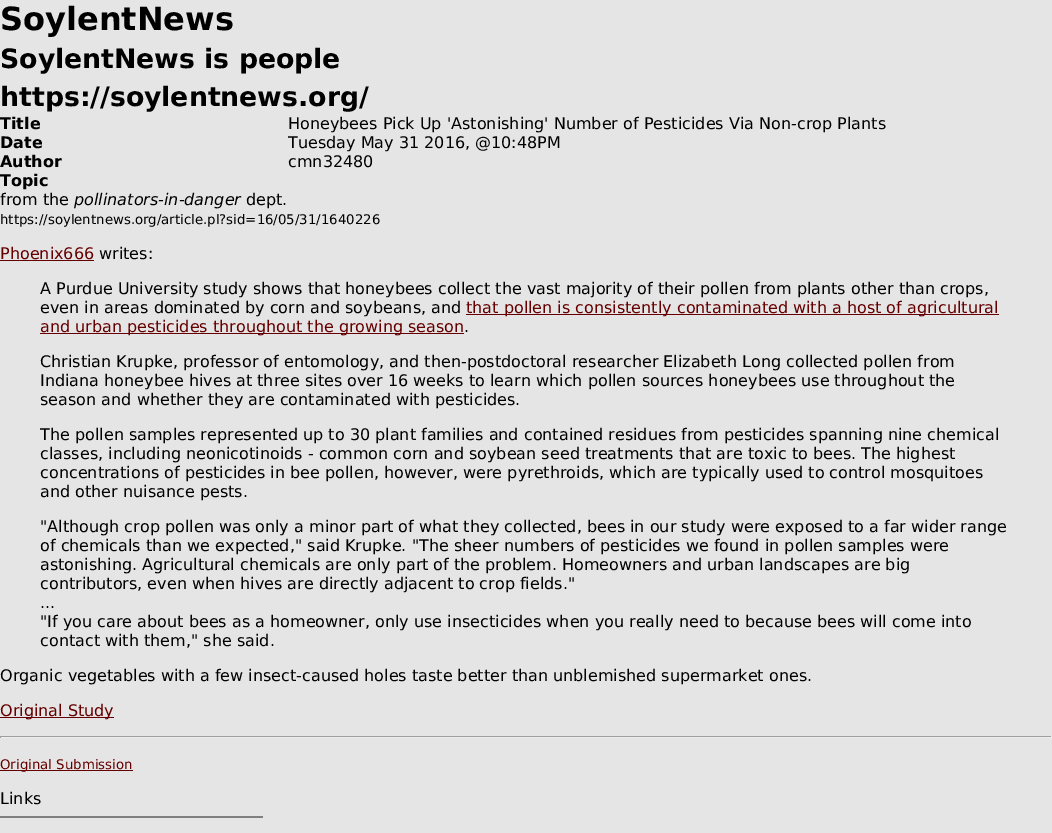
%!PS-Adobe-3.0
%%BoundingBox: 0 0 1052 833
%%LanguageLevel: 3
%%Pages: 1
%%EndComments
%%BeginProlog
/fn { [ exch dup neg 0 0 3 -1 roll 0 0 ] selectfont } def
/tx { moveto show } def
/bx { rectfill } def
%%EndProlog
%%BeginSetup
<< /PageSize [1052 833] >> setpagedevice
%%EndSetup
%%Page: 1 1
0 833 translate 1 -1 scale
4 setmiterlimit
0.898 setgray
0 0 1052 833 bx
/DejaVuSans-Bold 32 fn
0 setgray
(SoylentNews) 0 30 tx
/DejaVuSans-Bold 26.7 fn
(SoylentNews is people) 0 68 tx
(https://soylentnews.org/) 0 106 tx
/DejaVuSans-Bold 16 fn
(Title) 0 129 tx
/DejaVuSans-Regular 16 fn
(Honeybees Pick Up 'Astonishing' Number of Pesticides Via Non-crop Plants) 288 129 tx
/DejaVuSans-Bold 16 fn
(Date) 0 148 tx
/DejaVuSans-Regular 16 fn
(Tuesday May 31 2016, @10:48PM) 288 148 tx
/DejaVuSans-Bold 16 fn
(Author) 0 167 tx
/DejaVuSans-Regular 16 fn
(cmn32480) 288 167 tx
/DejaVuSans-Bold 16 fn
(Topic) 0 186 tx
/DejaVuSans-Regular 16 fn
(from the) 0 205 tx
/DejaVuSans-Italic 16 fn
(pollinators-in-danger) 74 205 tx
/DejaVuSans-Regular 16 fn
(dept.) 246 205 tx
/DejaVuSans-Regular 13.3 fn
(https://soylentnews.org/article.pl?sid=16/05/31/1640226) 0 224 tx
/DejaVuSans-Regular 16 fn
0.4 0 0 setrgbcolor
(Phoenix666) 0 259 tx
0 260 94 1 bx
0 setgray
(writes:) 99 259 tx
(A Purdue University study shows that honeybees collect the vast majority of their pollen from plants other than crops,) 40 294 tx
(even in areas dominated by corn and soybeans, and) 40 313 tx
0.4 0 0 setrgbcolor
466 314 533 1 bx
(that pollen is consistently contaminated with a host of agricultural) 466 313 tx
40 333 424 1 bx
(and urban pesticides throughout the growing season) 40 332 tx
0 setgray
(.) 464 332 tx
(Christian Krupke, professor of entomology, and then-postdoctoral researcher Elizabeth Long collected pollen from) 40 367 tx
(Indiana honeybee hives at three sites over 16 weeks to learn which pollen sources honeybees use throughout the) 40 386 tx
(season and whether they are contaminated with pesticides.) 40 405 tx
(The pollen samples represented up to 30 plant families and contained residues from pesticides spanning nine chemical) 40 440 tx
(classes, including neonicotinoids - common corn and soybean seed treatments that are toxic to bees. The highest) 40 459 tx
(concentrations of pesticides in bee pollen, however, were pyrethroids, which are typically used to control mosquitoes) 40 478 tx
(and other nuisance pests.) 40 497 tx
("Although crop pollen was only a minor part of what they collected, bees in our study were exposed to a far wider range) 40 532 tx
(of chemicals than we expected," said Krupke. "The sheer numbers of pesticides we found in pollen samples were) 40 551 tx
(astonishing. Agricultural chemicals are only part of the problem. Homeowners and urban landscapes are big) 40 570 tx
(contributors, even when hives are directly adjacent to crop fields.") 40 589 tx
(...) 40 608 tx
("If you care about bees as a homeowner, only use insecticides when you really need to because bees will come into) 40 627 tx
(contact with them," she said.) 40 646 tx
(Organic vegetables with a few insect-caused holes taste better than unblemished supermarket ones.) 0 681 tx
0.4 0 0 setrgbcolor
0 717 114 1 bx
(Original Study) 0 716 tx
0.624 setgray
0 736 1052 1 bx
0.933 setgray
1051 736 1 2 bx
0 737 1052 1 bx
0.624 setgray
0 736 1 2 bx
0.4 0 0 setrgbcolor
0 770 133 1 bx
/DejaVuSans-Regular 13.3 fn
(Original Submission) 0 769 tx
/DejaVuSans-Regular 16 fn
0 setgray
(Links) 0 804 tx
0.502 setgray
0 816 263 2 bx
showpage
%%EOF
